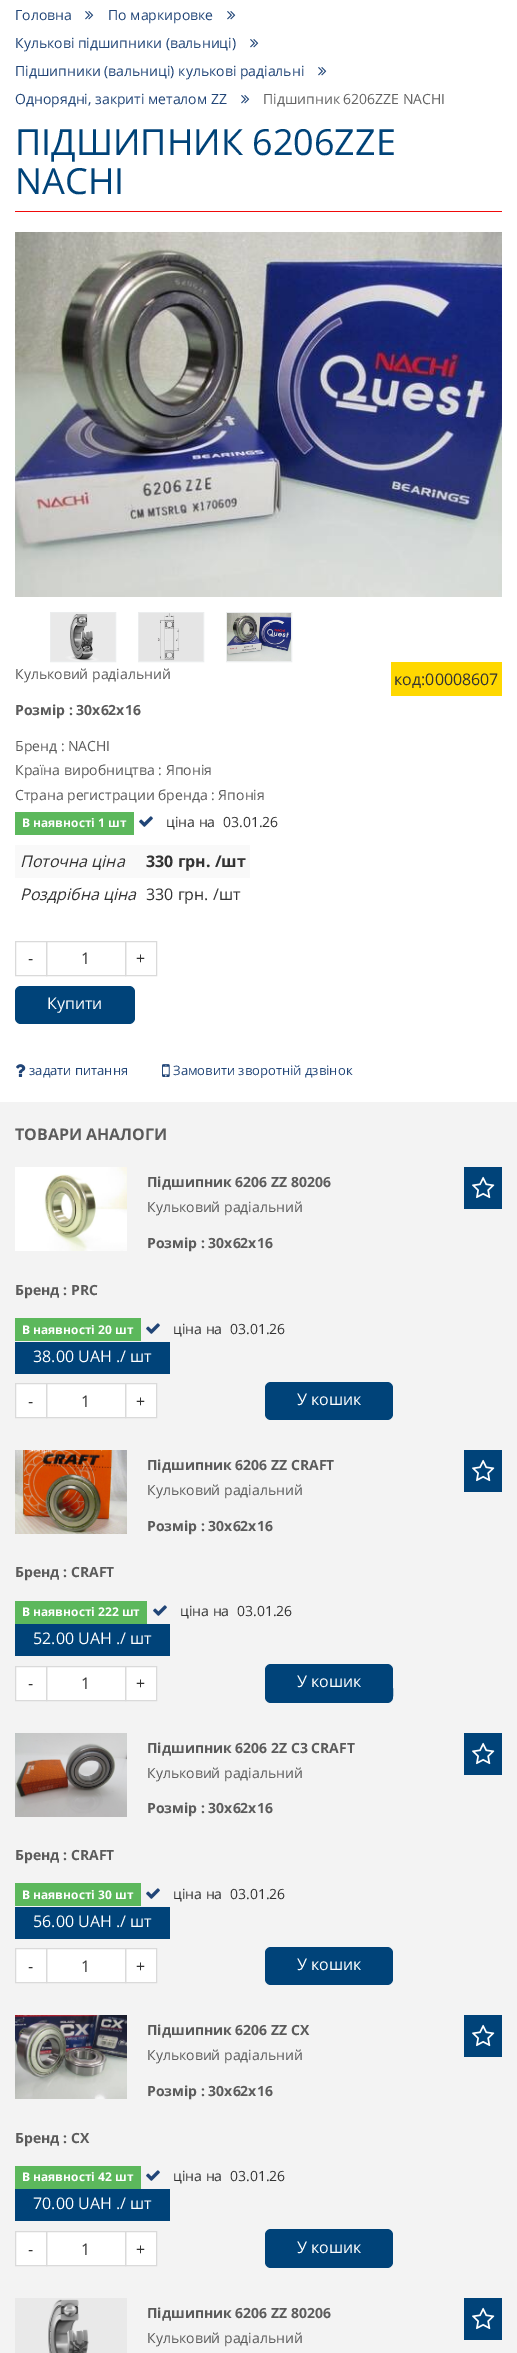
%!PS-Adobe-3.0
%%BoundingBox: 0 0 517 2353
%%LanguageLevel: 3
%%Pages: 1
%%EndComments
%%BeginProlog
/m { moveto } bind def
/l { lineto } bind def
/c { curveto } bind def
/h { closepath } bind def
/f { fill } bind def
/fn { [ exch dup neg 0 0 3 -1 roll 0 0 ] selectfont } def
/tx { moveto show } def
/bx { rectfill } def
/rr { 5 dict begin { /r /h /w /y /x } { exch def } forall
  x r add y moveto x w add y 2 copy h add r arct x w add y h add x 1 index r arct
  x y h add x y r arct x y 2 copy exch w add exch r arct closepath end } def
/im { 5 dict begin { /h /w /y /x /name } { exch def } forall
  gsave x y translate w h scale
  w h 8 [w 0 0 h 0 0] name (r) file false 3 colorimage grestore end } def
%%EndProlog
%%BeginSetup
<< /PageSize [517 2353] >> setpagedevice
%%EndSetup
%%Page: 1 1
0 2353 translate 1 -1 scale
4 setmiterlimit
1 setgray
0 0 517 2353 bx
/OpenSans-Regular 14 fn
0.129 0.271 0.467 setrgbcolor
(Головна) 15 20 tx
(image0.raw) 85 11 9 9 im
(По маркировке) 108 20 tx
(image0.raw) 227 11 9 9 im
(Кулькові підшипники \(вальниці\)) 15 48 tx
(image0.raw) 250 39 9 9 im
(Підшипники \(вальниці\) кулькові радіальні) 15 76 tx
(image0.raw) 318 67 9 9 im
(Однорядні, закриті металом ZZ) 15 104 tx
(image0.raw) 241 95 9 9 im
0.388 setgray
(Підшипник 6206ZZE NACHI) 263 104 tx
0.945 0.039 0.039 setrgbcolor
15 211 487 1 bx
/OpenSans-Regular 36 fn
0 0.263 0.475 setrgbcolor
(ПІДШИПНИК 6206ZZE) 15 155 tx
(NACHI) 15 194 tx
(image1.raw) 15 232 487 365 im
0.922 0.929 0.933 setrgbcolor
50.5 612.5 65 49 rectstroke
(image2.raw) 51 613 64 48 im
138.5 612.5 65 49 rectstroke
(image3.raw) 139 613 64 48 im
226.5 612.5 65 49 rectstroke
(image4.raw) 227 613 64 48 im
/OpenSans-Regular 14 fn
0.357 setgray
(Кульковий радіальний) 15 679 tx
1 0.847 0 setrgbcolor
391 662 111 34 bx
/OpenSans-Regular 16 fn
0.2 setgray
(код:00008607) 394 685 tx
/OpenSans-Bold 14 fn
0.357 setgray
(Розмір : 30х62х16) 15 715 tx
/OpenSans-Regular 14 fn
(Бренд : NACHI) 15 751 tx
(Країна виробництва : Японія) 15 775 tx
(Страна регистрации бренда : Японія) 15 800 tx
0.361 0.722 0.361 setrgbcolor
15 812 119 23 bx
/OpenSans-Bold 12 fn
1 setgray
(В наявності 1 шт) 22 827 tx
(image5.raw) 139 816 14 11 im
/OpenSans-Regular 14 fn
0.2 setgray
(ціна на) 166 827 tx
(03.01.26) 223 827 tx
0.976 setgray
15 845 235 33 bx
/OpenSans-Italic 16 fn
0.2 setgray
(Поточна ціна) 20 867 tx
/OpenSans-Bold 16 fn
(330 грн. /шт) 146 867 tx
/OpenSans-Italic 16 fn
(Роздрібна ціна) 20 900 tx
/OpenSans-Regular 16 fn
(330 грн. /шт) 146 900 tx
0.855 setgray
15.5 941.5 31 34 rectstroke
0.2 setgray
(-) 28 964 tx
0.855 setgray
46.5 941.5 79 34 rectstroke
0.2 setgray
(1) 81 964 tx
0.855 setgray
125.5 941.5 31 34 rectstroke
0.2 setgray
(+) 136 964 tx
0 0.263 0.475 setrgbcolor
15 986 120 38 6 rr f
1 setgray
(Купити) 47 1009 tx
0 0.263 0.475 setrgbcolor
133.5 1009.5 m 135 1011 l 135 1018.5 l 133.5 1020.5 127 1020 124.5 1020 c 123.5 1019 l h f
(image6.raw) 16 1064 10 13 im
/OpenSans-Regular 13 fn
0.129 0.271 0.467 setrgbcolor
(задати питання) 29 1075 tx
(image7.raw) 162 1064 8 13 im
(Замовити зворотній дзвінок) 173 1075 tx
0.953 setgray
0 1102 517 1251 bx
/OpenSans-Bold 16 fn
0.357 setgray
(ТОВАРИ АНАЛОГИ) 15 1140 tx
(image8.raw) 15 1167 112 84 im
/OpenSans-Bold 14 fn
(Підшипник 6206 ZZ 80206) 147 1187 tx
0 0.263 0.475 setrgbcolor
464 1167 38 42 bx
(image9.raw) 472 1176 23 23 im
/OpenSans-Regular 14 fn
0.357 setgray
(Кульковий радіальний) 147 1212 tx
/OpenSans-Bold 14 fn
(Розмір : 30х62х16) 147 1248 tx
(Бренд : PRC) 15 1295 tx
0.361 0.722 0.361 setrgbcolor
15 1318 126 23 bx
/OpenSans-Bold 12 fn
1 setgray
(В наявності 20 шт) 22 1334 tx
(image10.raw) 146 1323 14 11 im
/OpenSans-Regular 14 fn
0.2 setgray
(ціна на) 173 1334 tx
(03.01.26) 230 1334 tx
0 0.263 0.475 setrgbcolor
15 1342 155 32 bx
/OpenSans-Regular 16 fn
1 setgray
(38.00 UAH ./ шт) 33 1362 tx
16 1384 140 33 bx
0.855 setgray
15.5 1383.5 31 34 rectstroke
0.2 setgray
(-) 28 1407 tx
0.855 setgray
46.5 1383.5 79 34 rectstroke
0.2 setgray
(1) 81 1407 tx
0.855 setgray
125.5 1383.5 31 34 rectstroke
0.2 setgray
(+) 136 1407 tx
0 0.263 0.475 setrgbcolor
265 1382 128 38 6 rr f
1 setgray
(У кошик) 297 1405 tx
0 0.263 0.475 setrgbcolor
392.5 1405 m 393 1405.5 l 393 1414.5 l 391.5 1416.5 385.5 1416 383.5 1416 c 382.5 1415 l h f
(image11.raw) 15 1450 112 84 im
/OpenSans-Bold 14 fn
0.357 setgray
(Підшипник 6206 ZZ CRAFT) 147 1470 tx
0 0.263 0.475 setrgbcolor
464 1450 38 42 bx
(image9.raw) 472 1459 23 23 im
/OpenSans-Regular 14 fn
0.357 setgray
(Кульковий радіальний) 147 1495 tx
/OpenSans-Bold 14 fn
(Розмір : 30х62х16) 147 1531 tx
(Бренд : CRAFT) 15 1577 tx
0.361 0.722 0.361 setrgbcolor
15 1601 132 23 bx
/OpenSans-Bold 12 fn
1 setgray
(В наявності 222 шт) 22 1616 tx
(image10.raw) 153 1605 14 11 im
/OpenSans-Regular 14 fn
0.2 setgray
(ціна на) 180 1616 tx
(03.01.26) 237 1616 tx
0 0.263 0.475 setrgbcolor
15 1624 155 32 bx
/OpenSans-Regular 16 fn
1 setgray
(52.00 UAH ./ шт) 33 1644 tx
16 1667 140 33 bx
0.855 setgray
15.5 1666.5 31 34 rectstroke
0.2 setgray
(-) 28 1689 tx
0.855 setgray
46.5 1666.5 79 34 rectstroke
0.2 setgray
(1) 81 1689 tx
0.855 setgray
125.5 1666.5 31 34 rectstroke
0.2 setgray
(+) 136 1689 tx
0 0.263 0.475 setrgbcolor
265 1664 128 39 6 rr f
1 setgray
(У кошик) 297 1687 tx
0 0.263 0.475 setrgbcolor
392.5 1687.5 m 393 1688 l 393 1698.5 395 1699 384 1699 c 382.5 1697.5 l h f
(image12.raw) 15 1733 112 84 im
/OpenSans-Bold 14 fn
0.357 setgray
(Підшипник 6206 2Z C3 CRAFT) 147 1753 tx
0 0.263 0.475 setrgbcolor
464 1733 38 42 bx
(image9.raw) 472 1742 23 23 im
/OpenSans-Regular 14 fn
0.357 setgray
(Кульковий радіальний) 147 1778 tx
/OpenSans-Bold 14 fn
(Розмір : 30х62х16) 147 1813 tx
(Бренд : CRAFT) 15 1860 tx
0.361 0.722 0.361 setrgbcolor
15 1883 126 23 bx
/OpenSans-Bold 12 fn
1 setgray
(В наявності 30 шт) 22 1899 tx
(image10.raw) 146 1888 14 11 im
/OpenSans-Regular 14 fn
0.2 setgray
(ціна на) 173 1899 tx
(03.01.26) 230 1899 tx
0 0.263 0.475 setrgbcolor
15 1907 155 32 bx
/OpenSans-Regular 16 fn
1 setgray
(56.00 UAH ./ шт) 33 1927 tx
16 1949 140 33 bx
0.855 setgray
15.5 1948.5 31 34 rectstroke
0.2 setgray
(-) 28 1972 tx
0.855 setgray
46.5 1948.5 79 34 rectstroke
0.2 setgray
(1) 81 1972 tx
0.855 setgray
125.5 1948.5 31 34 rectstroke
0.2 setgray
(+) 136 1972 tx
0 0.263 0.475 setrgbcolor
265 1947 128 38 6 rr f
1 setgray
(У кошик) 297 1970 tx
0 0.263 0.475 setrgbcolor
392.5 1970 m 393 1970.5 l 393 1979.5 l 391.5 1981.5 385.5 1981 383.5 1981 c 382.5 1980 l h f
(image13.raw) 15 2015 112 84 im
/OpenSans-Bold 14 fn
0.357 setgray
(Підшипник 6206 ZZ CX) 147 2035 tx
0 0.263 0.475 setrgbcolor
464 2015 38 42 bx
(image9.raw) 472 2024 23 23 im
/OpenSans-Regular 14 fn
0.357 setgray
(Кульковий радіальний) 147 2060 tx
/OpenSans-Bold 14 fn
(Розмір : 30х62х16) 147 2096 tx
(Бренд : CX) 15 2143 tx
0.361 0.722 0.361 setrgbcolor
15 2166 126 23 bx
/OpenSans-Bold 12 fn
1 setgray
(В наявності 42 шт) 22 2181 tx
(image10.raw) 146 2170 14 11 im
/OpenSans-Regular 14 fn
0.2 setgray
(ціна на) 173 2181 tx
(03.01.26) 230 2181 tx
0 0.263 0.475 setrgbcolor
15 2189 155 32 bx
/OpenSans-Regular 16 fn
1 setgray
(70.00 UAH ./ шт) 33 2209 tx
16 2232 140 33 bx
0.855 setgray
15.5 2231.5 31 34 rectstroke
0.2 setgray
(-) 28 2255 tx
0.855 setgray
46.5 2231.5 79 34 rectstroke
0.2 setgray
(1) 81 2255 tx
0.855 setgray
125.5 2231.5 31 34 rectstroke
0.2 setgray
(+) 136 2255 tx
0 0.263 0.475 setrgbcolor
265 2229 128 39 6 rr f
1 setgray
(У кошик) 297 2253 tx
0 0.263 0.475 setrgbcolor
392.5 2253 m 393 2253.5 l 393 2262.5 l 391.5 2264.5 385.5 2264 383.5 2264 c 382.5 2263 l h f
(image14.raw) 15 2298 112 55 im
/OpenSans-Bold 14 fn
0.357 setgray
(Підшипник 6206 ZZ 80206) 147 2318 tx
0 0.263 0.475 setrgbcolor
464 2298 38 42 bx
(image9.raw) 472 2307 23 23 im
/OpenSans-Regular 14 fn
0.357 setgray
(Кульковий радіальний) 147 2343 tx
showpage
%%EOF
